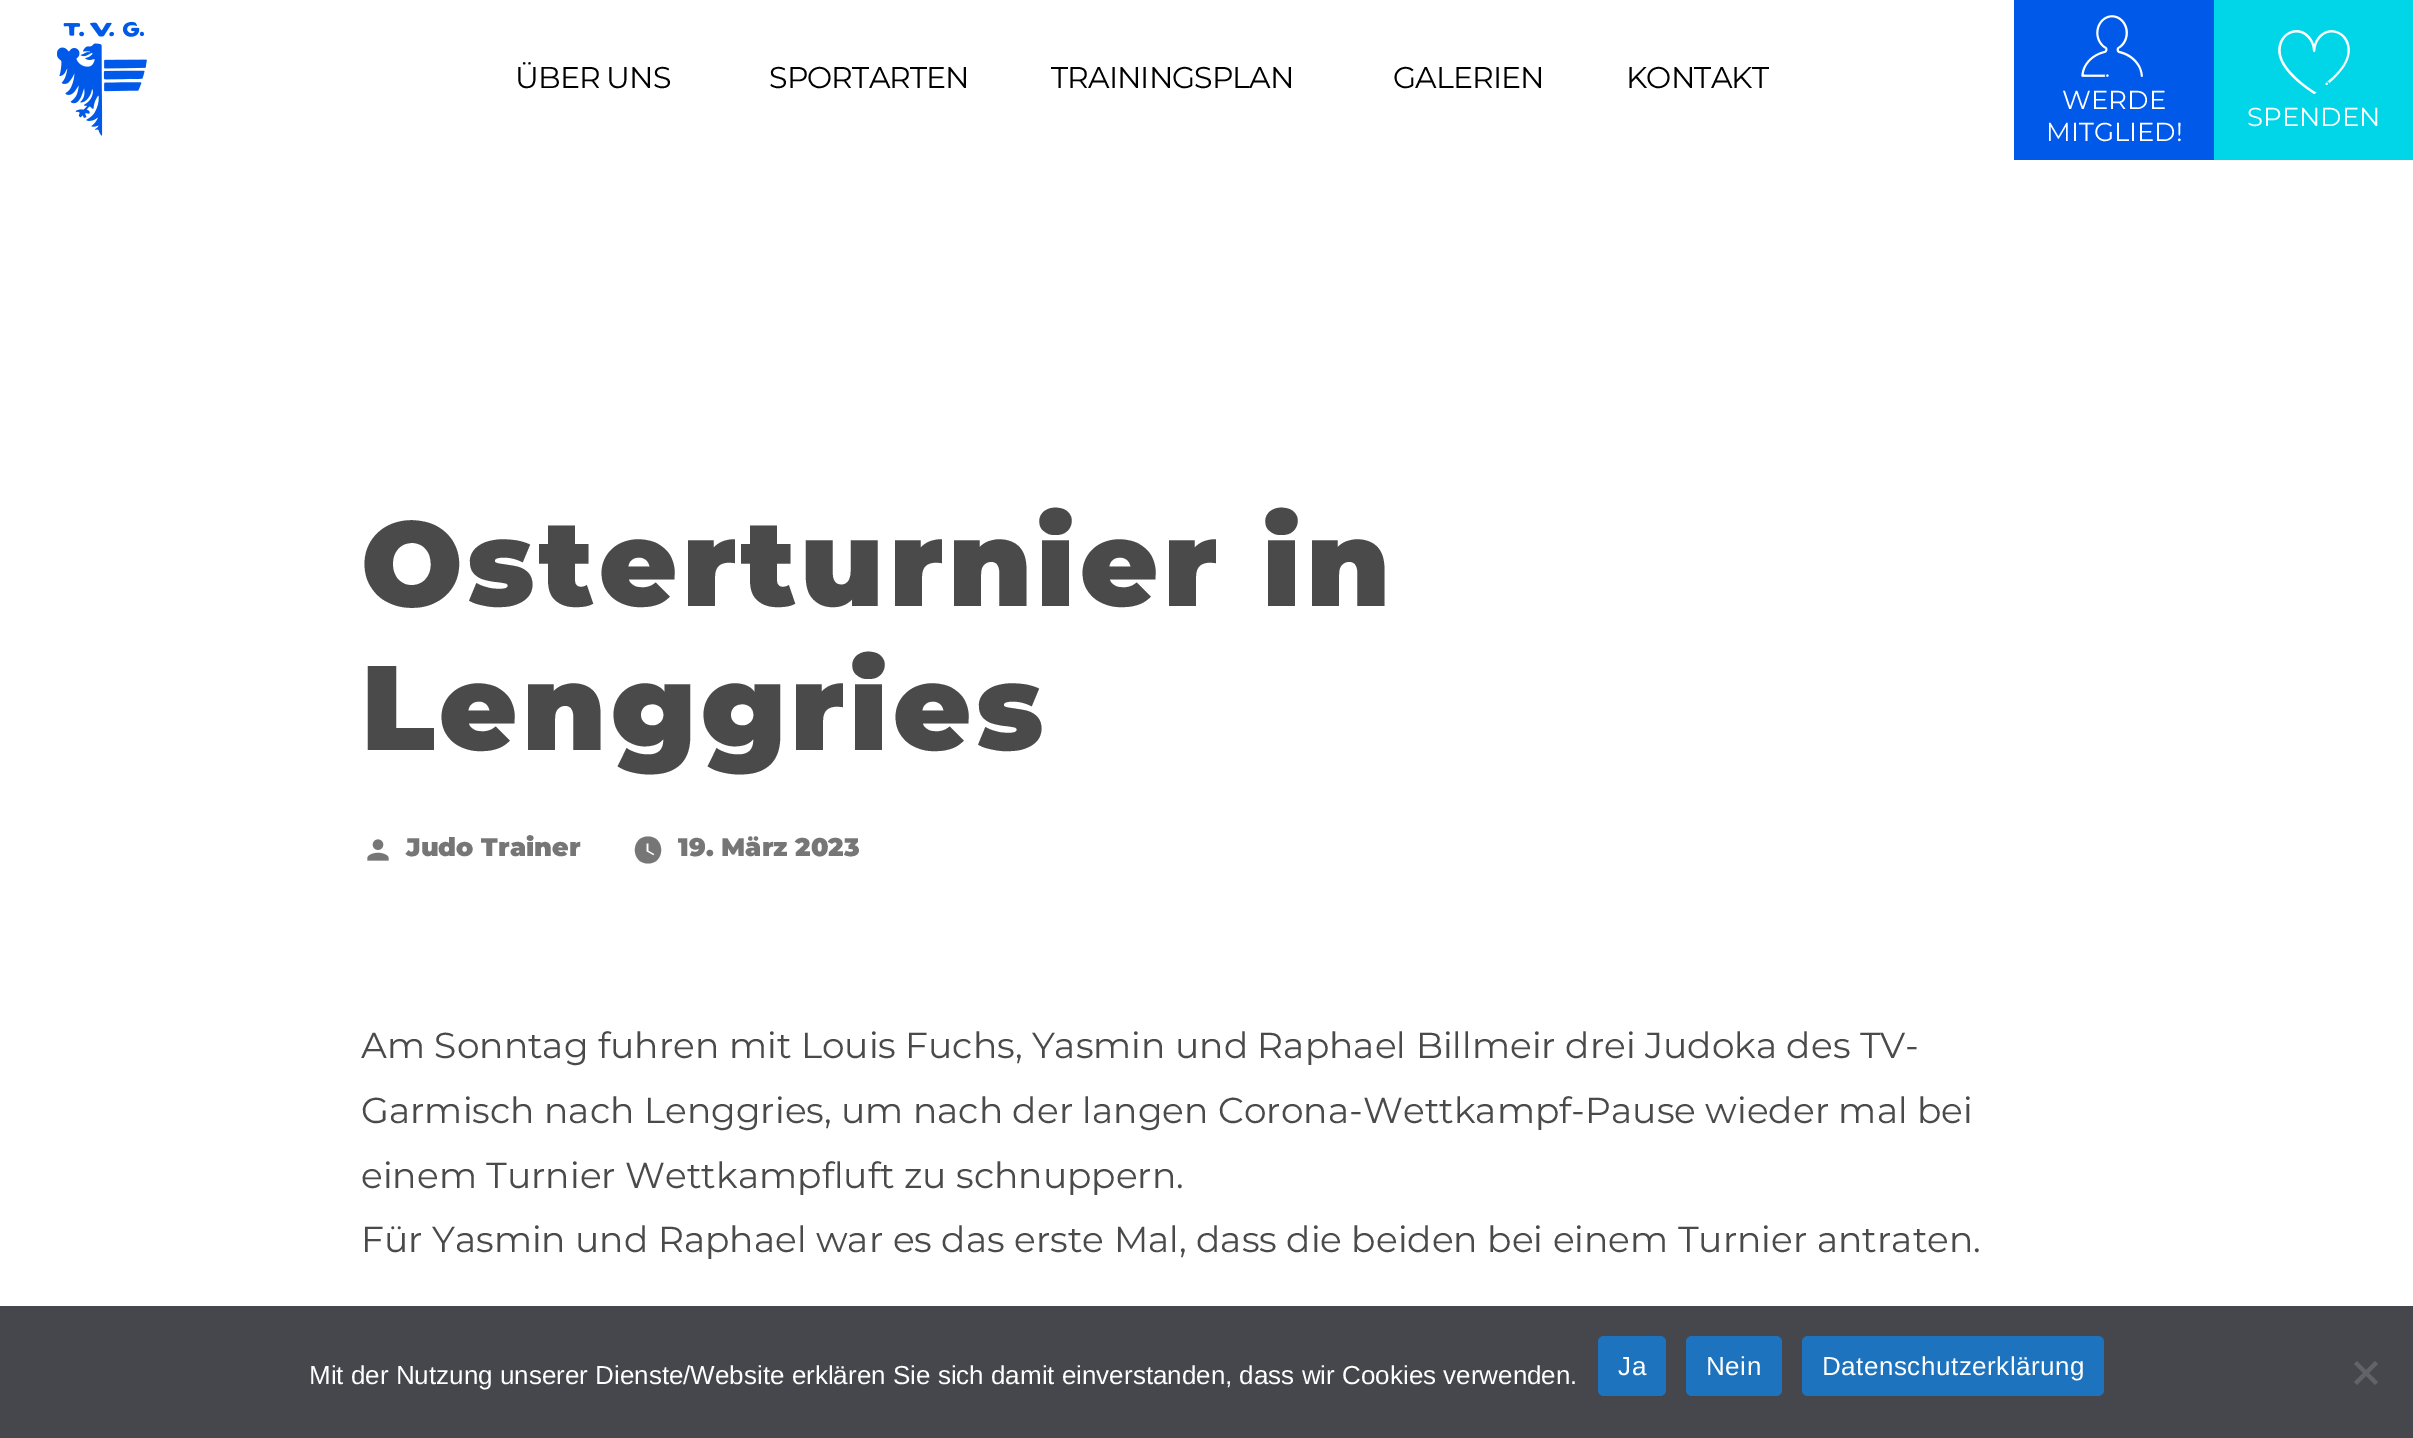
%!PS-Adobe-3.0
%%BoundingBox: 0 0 2413 1438
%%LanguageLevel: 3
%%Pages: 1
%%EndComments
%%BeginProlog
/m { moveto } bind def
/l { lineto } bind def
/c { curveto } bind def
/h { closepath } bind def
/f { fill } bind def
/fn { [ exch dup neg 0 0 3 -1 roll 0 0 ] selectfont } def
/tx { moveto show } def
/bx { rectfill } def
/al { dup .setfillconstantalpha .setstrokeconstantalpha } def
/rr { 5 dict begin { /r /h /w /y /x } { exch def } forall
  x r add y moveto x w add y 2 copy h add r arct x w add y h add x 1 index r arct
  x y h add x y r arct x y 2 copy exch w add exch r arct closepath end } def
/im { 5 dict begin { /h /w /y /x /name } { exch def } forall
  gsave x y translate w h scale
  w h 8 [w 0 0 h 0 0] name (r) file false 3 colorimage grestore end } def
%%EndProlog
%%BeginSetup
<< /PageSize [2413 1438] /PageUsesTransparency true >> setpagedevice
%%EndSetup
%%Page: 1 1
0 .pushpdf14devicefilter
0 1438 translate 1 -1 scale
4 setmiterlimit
1 setgray
0 0 2413 1438 bx
(image0.raw) 57 21 90 115 im
/Montserrat-Regular 30 fn
0 setgray
515 88 m -0.9 0 (ÜBER UNS) ashow
769 88 m -0.9 0 (SPORTARTEN) ashow
1051 88 m -0.9 0 (TRAININGSPLAN) ashow
1393 88 m -0.9 0 (GALERIEN) ashow
1626 88 m -0.9 0 (KONTAKT) ashow
0 0.349 0.91 setrgbcolor
2014 0 200 160 bx
(image1.raw) 2081 15 62 62 im
/Montserrat-Regular 26 fn
1 setgray
(WERDE) 2062 109 tx
(MITGLIED!) 2046 141 tx
0 0.839 0.91 setrgbcolor
2214 0 199 160 bx
(image2.raw) 2278 30 72 64 im
1 setgray
(SPENDEN) 2247 126 tx
/Montserrat-Black 120 fn
0.29 setgray
361 606 m 4.4 0 (Osterturnier in) ashow
361 750 m 4.4 0 (Lenggries) ashow
(image3.raw) 367 839 22 22 im
/Montserrat-Black 25.5 fn
0.463 setgray
(Judo Trainer) 406 856 tx
648 836.5 m 630.5 836.5 630.5 863.5 648 863.5 c 665.5 863.5 665.5 836.5 648 836.5 c h 653.5 855.5 m 646.5 851.5 l 646.5 843.5 l 648.5 843.5 l 648.5 850.5 l 654.5 854 l h f
(19. März 2023) 678 856 tx
/Montserrat-Regular 36 fn
0.29 setgray
(Am Sonntag fuhren mit Louis Fuchs, Yasmin und Raphael Billmeir drei Judoka des TV-) 361 1058 tx
(Garmisch nach Lenggries, um nach der langen Corona-Wettkampf-Pause wieder mal bei) 361 1123 tx
(einem Turnier Wettkampfluft zu schnuppern.) 361 1188 tx
(Für Yasmin und Raphael war es das erste Mal, dass die beiden bei einem Turnier antraten.) 361 1252 tx
0.9 al
0.196 0.196 0.227 setrgbcolor
0 1306 2413 132 bx
/LiberationSans-Regular 26 fn
1 al
1 setgray
(Mit der Nutzung unserer Dienste/Website erklären Sie sich damit einverstanden, dass wir Cookies verwenden.) 309 1384 tx
0.118 0.451 0.745 setrgbcolor
1598 1336 68 60 6 rr f
1 setgray
1618 1375 m 0.5 0 (Ja) ashow
0.118 0.451 0.745 setrgbcolor
1686 1336 96 60 6 rr f
1 setgray
1706 1375 m 0.5 0 (Nein) ashow
0.118 0.451 0.745 setrgbcolor
1802 1336 302 60 6 rr f
1 setgray
1822 1375 m 0.5 0 (Datenschutzerklärung) ashow
0.388 0.388 0.404 setrgbcolor
2375 1361 m 2378 1364 l 2357 1385 l 2354 1382 l h f
2354 1364 m 2357 1361 l 2378 1382 l 2375 1385 l h f
.poppdf14devicefilter showpage
%%EOF
